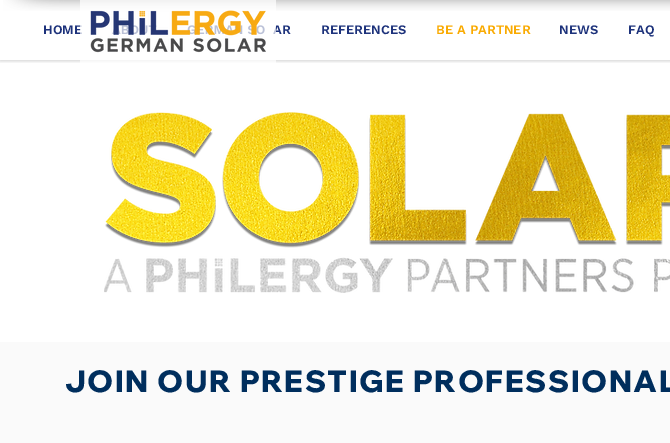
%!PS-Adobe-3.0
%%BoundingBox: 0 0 670 443
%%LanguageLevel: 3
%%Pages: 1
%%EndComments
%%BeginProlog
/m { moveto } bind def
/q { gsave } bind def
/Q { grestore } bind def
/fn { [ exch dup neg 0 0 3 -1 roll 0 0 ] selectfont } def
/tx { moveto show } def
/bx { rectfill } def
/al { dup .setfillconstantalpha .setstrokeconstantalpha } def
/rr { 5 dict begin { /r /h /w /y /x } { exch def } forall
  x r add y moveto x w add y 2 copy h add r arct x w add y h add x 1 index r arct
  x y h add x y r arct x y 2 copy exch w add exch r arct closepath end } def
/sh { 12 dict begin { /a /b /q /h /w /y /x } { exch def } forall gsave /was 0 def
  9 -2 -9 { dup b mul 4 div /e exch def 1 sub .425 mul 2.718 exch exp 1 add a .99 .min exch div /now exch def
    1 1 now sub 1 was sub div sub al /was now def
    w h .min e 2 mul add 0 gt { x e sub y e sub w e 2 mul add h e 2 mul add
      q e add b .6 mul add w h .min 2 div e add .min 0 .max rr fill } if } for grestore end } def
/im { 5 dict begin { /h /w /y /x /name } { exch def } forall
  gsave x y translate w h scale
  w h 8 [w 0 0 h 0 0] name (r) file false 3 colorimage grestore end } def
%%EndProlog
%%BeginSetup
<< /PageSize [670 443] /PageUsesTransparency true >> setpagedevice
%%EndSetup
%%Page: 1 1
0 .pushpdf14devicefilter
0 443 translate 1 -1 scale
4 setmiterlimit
1 setgray
0 0 670 443 bx
(image1.raw) 3 0 97 11 im
(image2.raw) 100 0 570 11 im
q
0 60 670 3 rectclip
0 setgray
0 0 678 60 0 2.5 0.25 sh
Q
/WorkSans-SemiBold 13 fn
0.114 0.196 0.482 setrgbcolor
(HOME) 43 34 tx
(AR) 273 34 tx
0.7 al
1 setgray
80 0 196 63 bx
1 al
(image0.raw) 90 10 176 43 im
0.114 0.196 0.482 setrgbcolor
(REFERENCES) 321 34 tx
0.976 0.667 0.004 setrgbcolor
(BE A PARTNER) 436 34 tx
0.114 0.196 0.482 setrgbcolor
(NEWS) 559 34 tx
(FAQ) 628 34 tx
(image3.raw) 104 112 566 181 im
0.98 setgray
0 342 670 101 bx
/WixMadeforDisplay-ExtraBold 30 fn
0 0.18 0.365 setrgbcolor
65 392 m 1.5 0 (JOIN OUR PRESTIGE PROFESSIONAL) ashow
.poppdf14devicefilter showpage
%%EOF
